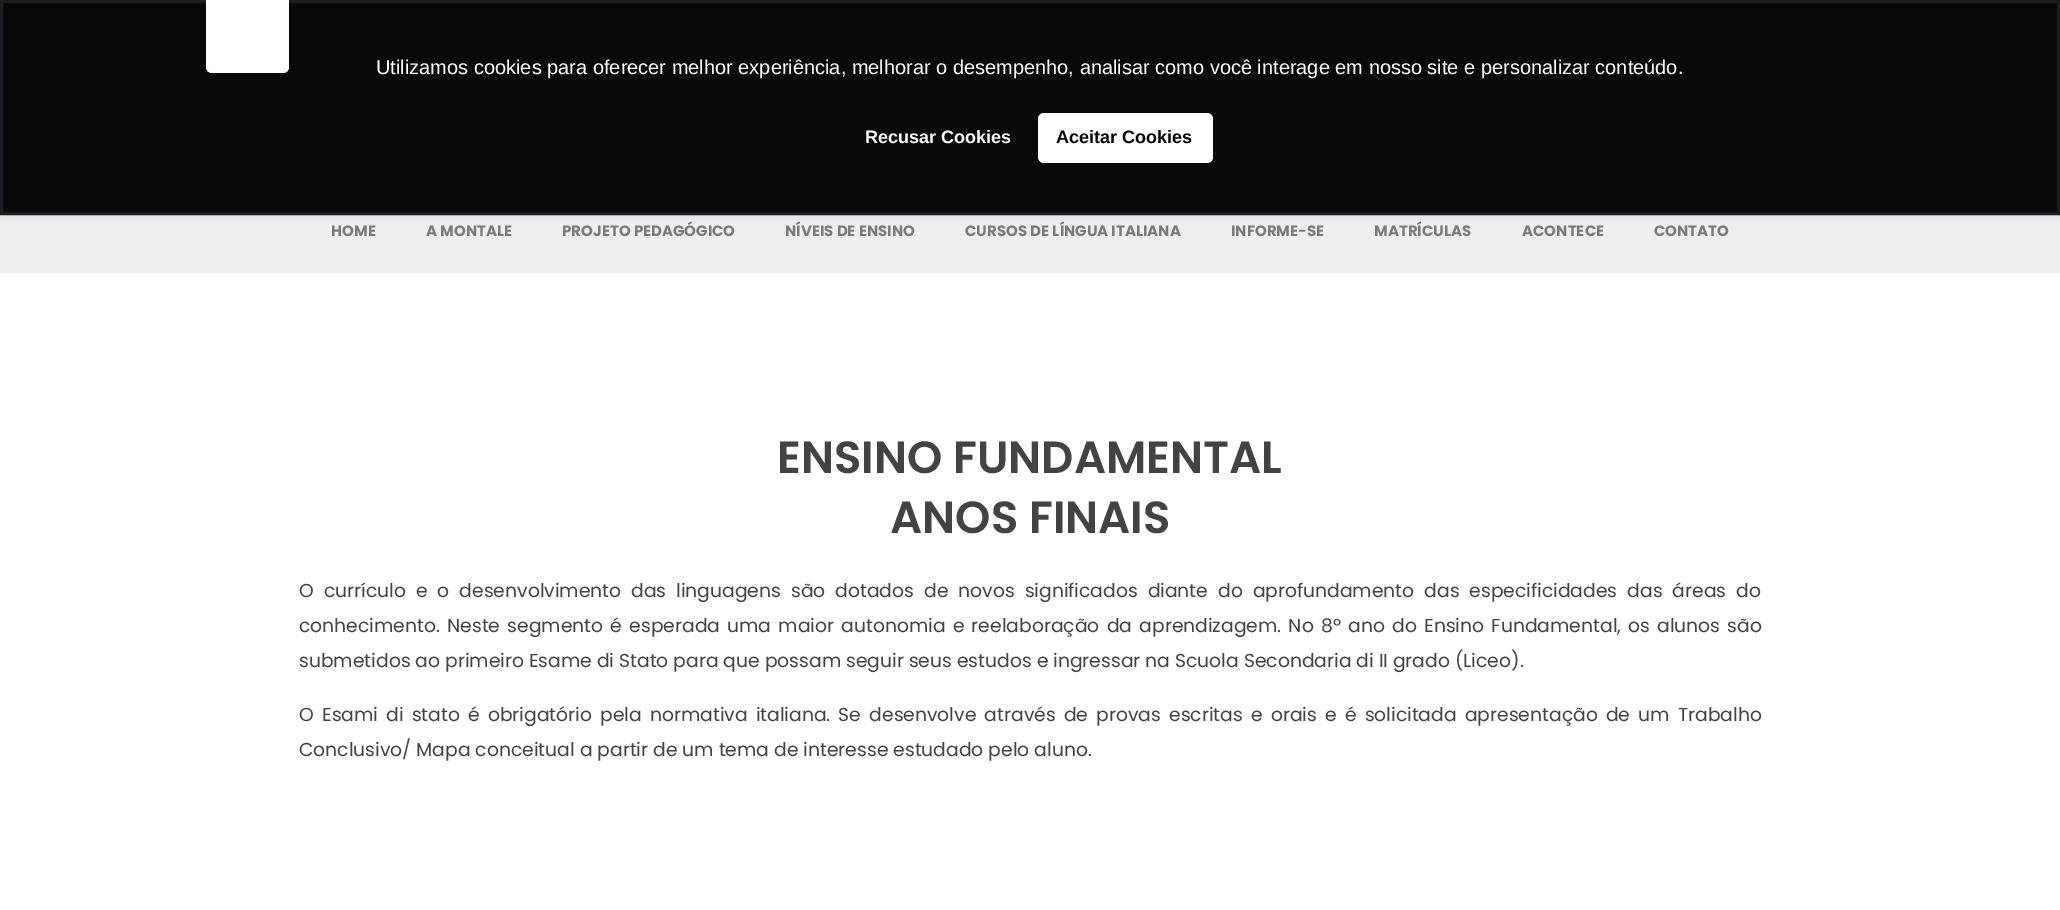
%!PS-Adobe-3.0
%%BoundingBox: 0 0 2060 910
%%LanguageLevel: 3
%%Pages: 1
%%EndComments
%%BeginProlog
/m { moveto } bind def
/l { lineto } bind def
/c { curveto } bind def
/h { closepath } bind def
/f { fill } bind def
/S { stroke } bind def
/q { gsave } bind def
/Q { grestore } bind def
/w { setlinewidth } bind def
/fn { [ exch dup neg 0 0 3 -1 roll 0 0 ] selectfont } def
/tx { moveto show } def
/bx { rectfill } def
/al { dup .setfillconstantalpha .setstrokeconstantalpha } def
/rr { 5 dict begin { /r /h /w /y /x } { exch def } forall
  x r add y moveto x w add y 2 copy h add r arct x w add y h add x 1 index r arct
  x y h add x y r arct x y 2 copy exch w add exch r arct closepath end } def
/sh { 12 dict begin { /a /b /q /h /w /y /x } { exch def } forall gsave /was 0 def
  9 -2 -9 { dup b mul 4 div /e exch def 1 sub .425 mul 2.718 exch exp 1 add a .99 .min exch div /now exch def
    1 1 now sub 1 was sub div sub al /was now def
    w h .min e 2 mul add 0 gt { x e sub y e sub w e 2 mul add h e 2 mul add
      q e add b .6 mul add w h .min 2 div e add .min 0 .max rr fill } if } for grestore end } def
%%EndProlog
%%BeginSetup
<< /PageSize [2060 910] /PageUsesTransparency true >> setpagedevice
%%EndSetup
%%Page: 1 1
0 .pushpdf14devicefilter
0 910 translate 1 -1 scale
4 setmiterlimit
1 setgray
0 0 2060 910 bx
0.929 0.933 0.941 setrgbcolor
0 215 2060 58 bx
0.388 0.431 0.486 setrgbcolor
1 3 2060 215 0 2.5 0.1 sh
0.035 setgray
1.5 1.5 m 2058.5 1.5 l 2058.5 213.5 l 1.5 213.5 l h q f Q
0.106 0.114 0.125 setrgbcolor
3 w
S
1 setgray
206 0 m 289 0 l 289 67 l 289 70.5 286.5 73 283 73 c 212 73 l 208.5 73 206 70.5 206 67 c h f
/LiberationSans-Regular 20 fn
(Utilizamos cookies para oferecer melhor experiência, melhorar o desempenho, analisar como você interage em nosso site e personalizar conteúdo.) 376 74 tx
/LiberationSans-Bold 18 fn
(Recusar Cookies) 865 143 tx
1038 113 175 50 6 rr f
0 setgray
(Aceitar Cookies) 1056 143 tx
/Poppins-Bold 15 fn
0.478 setgray
(HOME) 331 236 tx
(A MONTALE) 426 236 tx
(PROJETO PEDAGÓGICO) 562 236 tx
(NÍVEIS DE ENSINO) 785 236 tx
(CURSOS DE LÍNGUA ITALIANA) 965 236 tx
(INFORME-SE) 1231 236 tx
(MATRÍCULAS) 1374 236 tx
(ACONTECE) 1522 236 tx
(CONTATO) 1654 236 tx
/Poppins-SemiBold 45 fn
0.267 0.259 0.259 setrgbcolor
(ENSINO FUNDAMENTAL) 777 473 tx
(ANOS FINAIS) 890 533 tx
/Poppins-Regular 18.75 fn
299 597 m 5 0 32 (O currículo e o desenvolvimento das linguagens são dotados de novos significados diante do aprofundamento das especificidades das áreas do) widthshow
299 632 m 2.25 0 32 (conhecimento. Neste segmento é esperada uma maior autonomia e reelaboração da aprendizagem. No 8º ano do Ensino Fundamental, os alunos são) widthshow
(submetidos ao primeiro Esame di Stato para que possam seguir seus estudos e ingressar na Scuola Secondaria di II grado \(Liceo\).) 299 667 tx
299 721 m 3.2 0 32 (O Esami di stato é obrigatório pela normativa italiana. Se desenvolve através de provas escritas e orais e é solicitada apresentação de um Trabalho) widthshow
(Conclusivo/ Mapa conceitual a partir de um tema de interesse estudado pelo aluno.) 299 756 tx
.poppdf14devicefilter showpage
%%EOF
